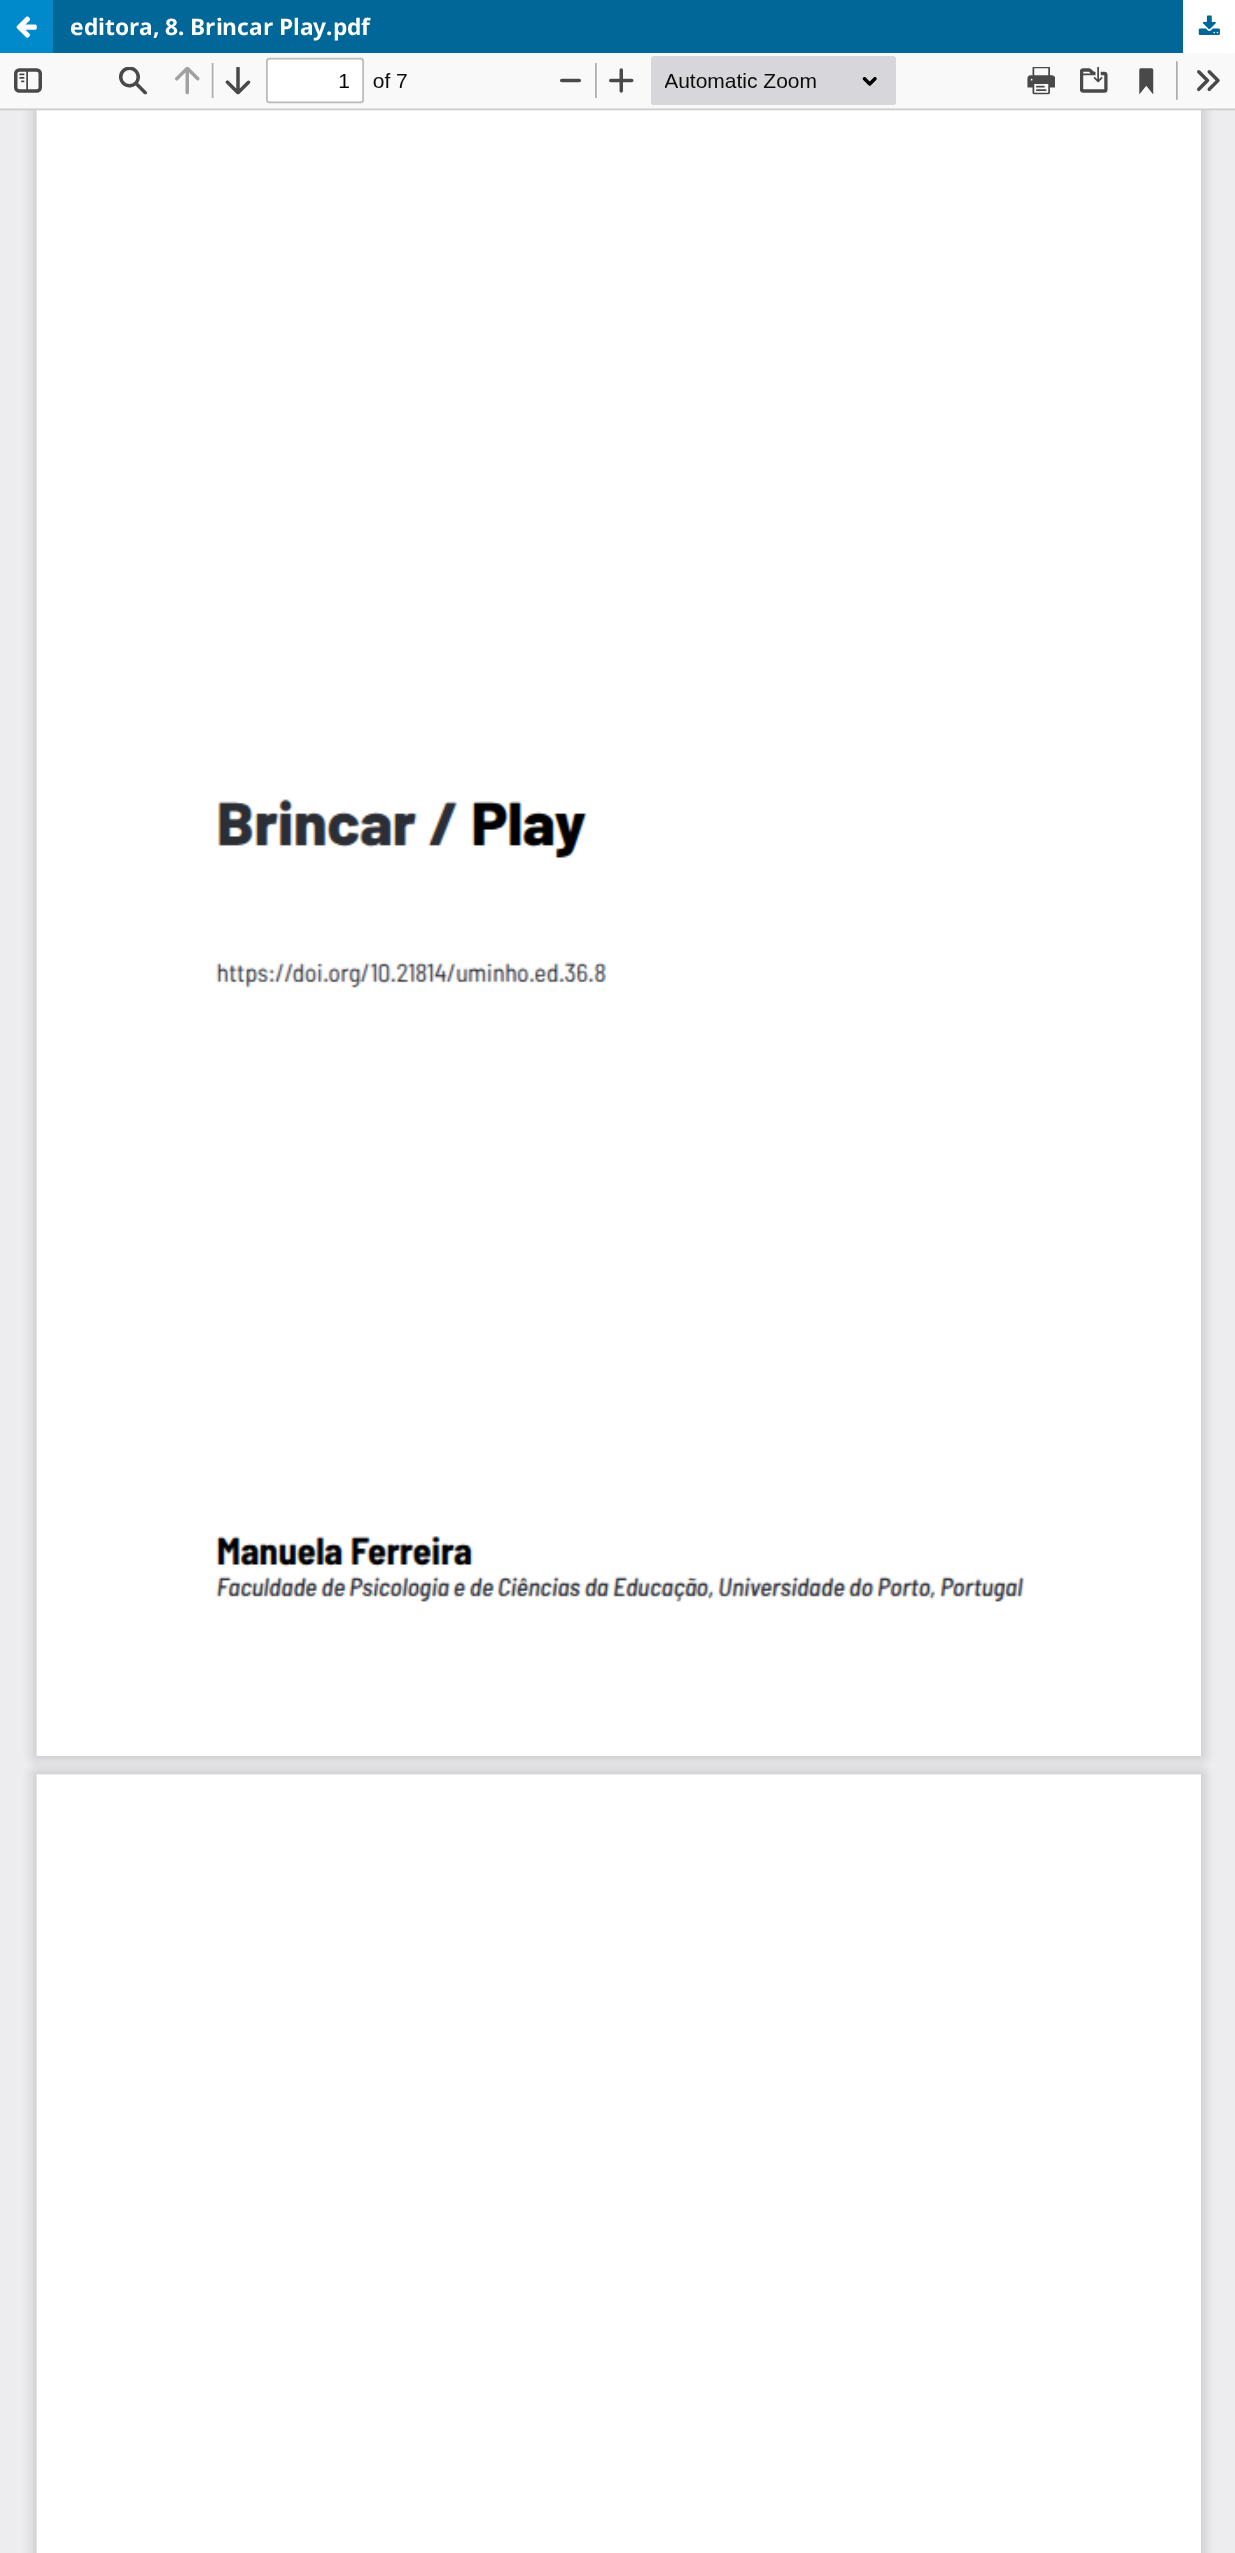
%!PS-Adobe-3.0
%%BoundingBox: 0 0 1235 2553
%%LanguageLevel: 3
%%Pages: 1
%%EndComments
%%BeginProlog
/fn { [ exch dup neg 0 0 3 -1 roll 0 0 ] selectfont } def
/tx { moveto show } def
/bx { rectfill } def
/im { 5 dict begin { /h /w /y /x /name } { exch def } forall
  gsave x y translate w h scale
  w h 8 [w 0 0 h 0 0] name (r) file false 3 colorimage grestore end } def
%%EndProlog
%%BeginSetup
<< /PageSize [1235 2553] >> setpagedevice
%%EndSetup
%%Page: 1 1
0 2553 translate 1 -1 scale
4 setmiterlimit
1 setgray
0 0 1235 2553 bx
0 0.404 0.596 setrgbcolor
53 0 1130 53 bx
0 0.541 0.796 setrgbcolor
0 0 53 53 bx
(image0.raw) 16 16 21 22 im
/NotoSans-Bold 22.75 fn
1 setgray
(editora, 8. Brincar Play.pdf) 70 35 tx
(image1.raw) 1198 15 22 20 im
(image2.raw) 0 53 1235 2500 im
showpage
%%EOF
